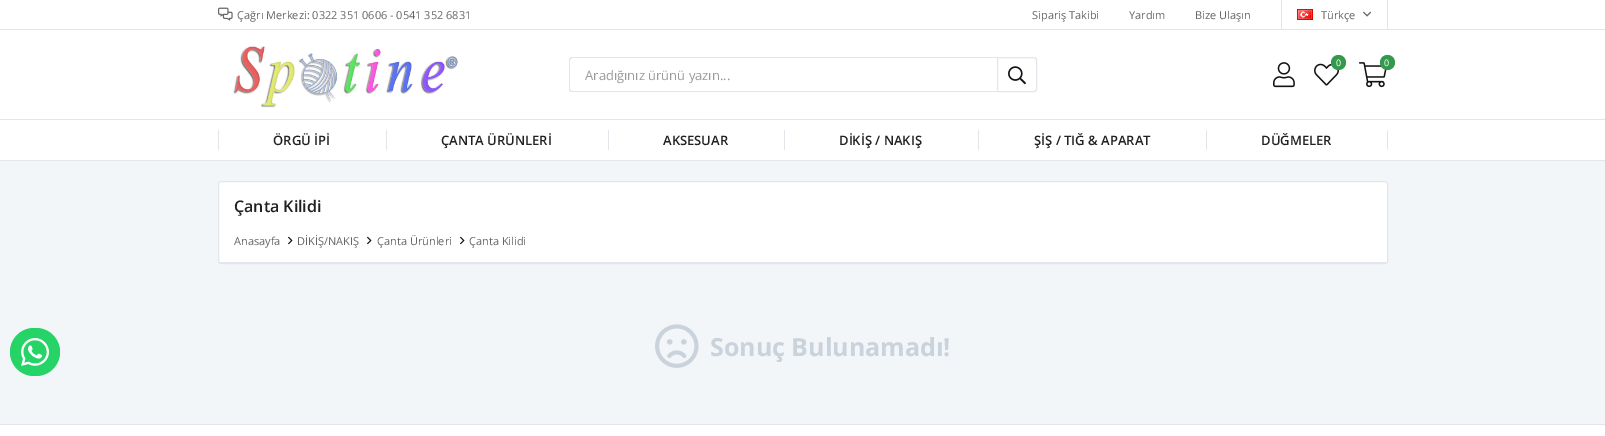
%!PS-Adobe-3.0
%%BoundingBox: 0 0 1605 436
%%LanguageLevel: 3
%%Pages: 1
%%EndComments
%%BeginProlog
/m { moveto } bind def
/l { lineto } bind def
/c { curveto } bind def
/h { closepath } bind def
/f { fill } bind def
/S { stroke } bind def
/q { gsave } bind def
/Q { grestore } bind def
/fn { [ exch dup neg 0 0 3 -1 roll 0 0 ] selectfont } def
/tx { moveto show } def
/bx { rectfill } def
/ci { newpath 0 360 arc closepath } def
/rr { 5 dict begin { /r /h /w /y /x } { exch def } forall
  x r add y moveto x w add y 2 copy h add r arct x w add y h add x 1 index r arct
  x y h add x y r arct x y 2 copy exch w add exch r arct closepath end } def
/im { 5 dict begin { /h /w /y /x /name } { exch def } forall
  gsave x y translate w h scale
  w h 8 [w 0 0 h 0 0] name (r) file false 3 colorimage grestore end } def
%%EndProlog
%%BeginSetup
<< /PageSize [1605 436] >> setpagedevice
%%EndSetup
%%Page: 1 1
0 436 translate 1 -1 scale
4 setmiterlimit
0.953 0.965 0.976 setrgbcolor
0 0 1605 436 bx
1 setgray
0 0 1605 160 bx
0.886 0.902 0.922 setrgbcolor
0 29 1605 1 bx
(image0.raw) 218 7 15 14 im
/OpenSans-Regular 11 fn
0.4 setgray
(Çağrı Merkezi: 0322 351 0606 - 0541 352 6831) 237 19 tx
(Sipariş Takibi) 1032 19 tx
(Yardım) 1129 19 tx
(Bize Ulaşın) 1195 19 tx
0.886 0.902 0.922 setrgbcolor
1387 0 1 30 bx
1281 0 1 30 bx
(image1.raw) 1297 9 16 11 im
0.4 setgray
(Türkçe) 1321 19 tx
(image2.raw) 1363 11 9 6 im
0.886 0.902 0.922 setrgbcolor
0 119 1605 1 bx
(image3.raw) 233 46 225 62 im
(image4.raw) 1273 62 22 26 im
(image5.raw) 1314 63 25 23 im
0.2 0.6 0.302 setrgbcolor
1338.5 62.5 7.5 ci f
/OpenSans-Regular 9 fn
1 setgray
(0) 1336 66 tx
(image6.raw) 1359 62 28 26 im
0.2 0.6 0.302 setrgbcolor
1387.5 62.5 7.5 ci f
1 setgray
(0) 1384 66 tx
0.886 0.902 0.922 setrgbcolor
572 57 m 997 57 l 997 92 l 572 92 l 570 92 569 91 569 89 c 569 60 l 569 58 570 57 572 57 c h 572 58 m 997 58 l 997 91 l 572 91 l 571 91 570 90 570 89 c 570 60 l 570 59 571 58 572 58 c h eofill
/OpenSans-Regular 13 fn
0.604 setgray
(Aradığınız ürünü yazın...) 585 80 tx
0.886 0.902 0.922 setrgbcolor
997.5 57.5 m 1034 57.5 l 1035.5 57.5 1036.5 58.5 1036.5 60 c 1036.5 89 l 1036.5 90.5 1035.5 91.5 1034 91.5 c 997.5 91.5 l h S
(image7.raw) 1008 66 18 19 im
0 160 1605 1 bx
218 130 1 20 bx
/OpenSans-SemiBold 13 fn
0.129 setgray
(ÖRGÜ İPİ) 273 145 tx
0.886 0.902 0.922 setrgbcolor
386 130 1 20 bx
0.129 setgray
(ÇANTA ÜRÜNLERİ) 441 145 tx
0.886 0.902 0.922 setrgbcolor
608 130 1 20 bx
0.129 setgray
(AKSESUAR) 663 145 tx
0.886 0.902 0.922 setrgbcolor
784 130 1 20 bx
0.129 setgray
(DİKİŞ / NAKIŞ) 839 145 tx
0.886 0.902 0.922 setrgbcolor
978 130 1 20 bx
0.129 setgray
(ŞİŞ / TIĞ & APARAT) 1034 145 tx
0.886 0.902 0.922 setrgbcolor
1206 130 1 20 bx
0.129 setgray
(DÜĞMELER) 1261 145 tx
0.886 0.902 0.922 setrgbcolor
1387 130 1 20 bx
0.145 0.827 0.4 setrgbcolor
10 328 50 48 24 rr f
(image8.raw) 21 338 28 28 im
1 setgray
218.5 181.5 1169 82 2.5 rr q f Q
0.886 0.902 0.922 setrgbcolor
S
219 262 1168 1 bx
/OpenSans-SemiBold 16 fn
0.129 setgray
(Çanta Kilidi) 234 212 tx
/OpenSans-Regular 11 fn
0.4 setgray
(Anasayfa) 234 245 tx
(image9.raw) 288 236 5 9 im
(DİKİŞ/NAKIŞ) 297 245 tx
(image9.raw) 367 236 5 9 im
(Çanta Ürünleri) 377 245 tx
(image9.raw) 460 236 5 9 im
(Çanta Kilidi) 469 245 tx
(image10.raw) 655 324 44 44 im
/OpenSans-Bold 25 fn
0.792 0.827 0.863 setrgbcolor
(Sonuç Bulunamadı!) 710 356 tx
1 setgray
0 425 1605 11 bx
0.886 0.902 0.922 setrgbcolor
0 424 1605 1 bx
showpage
%%EOF
